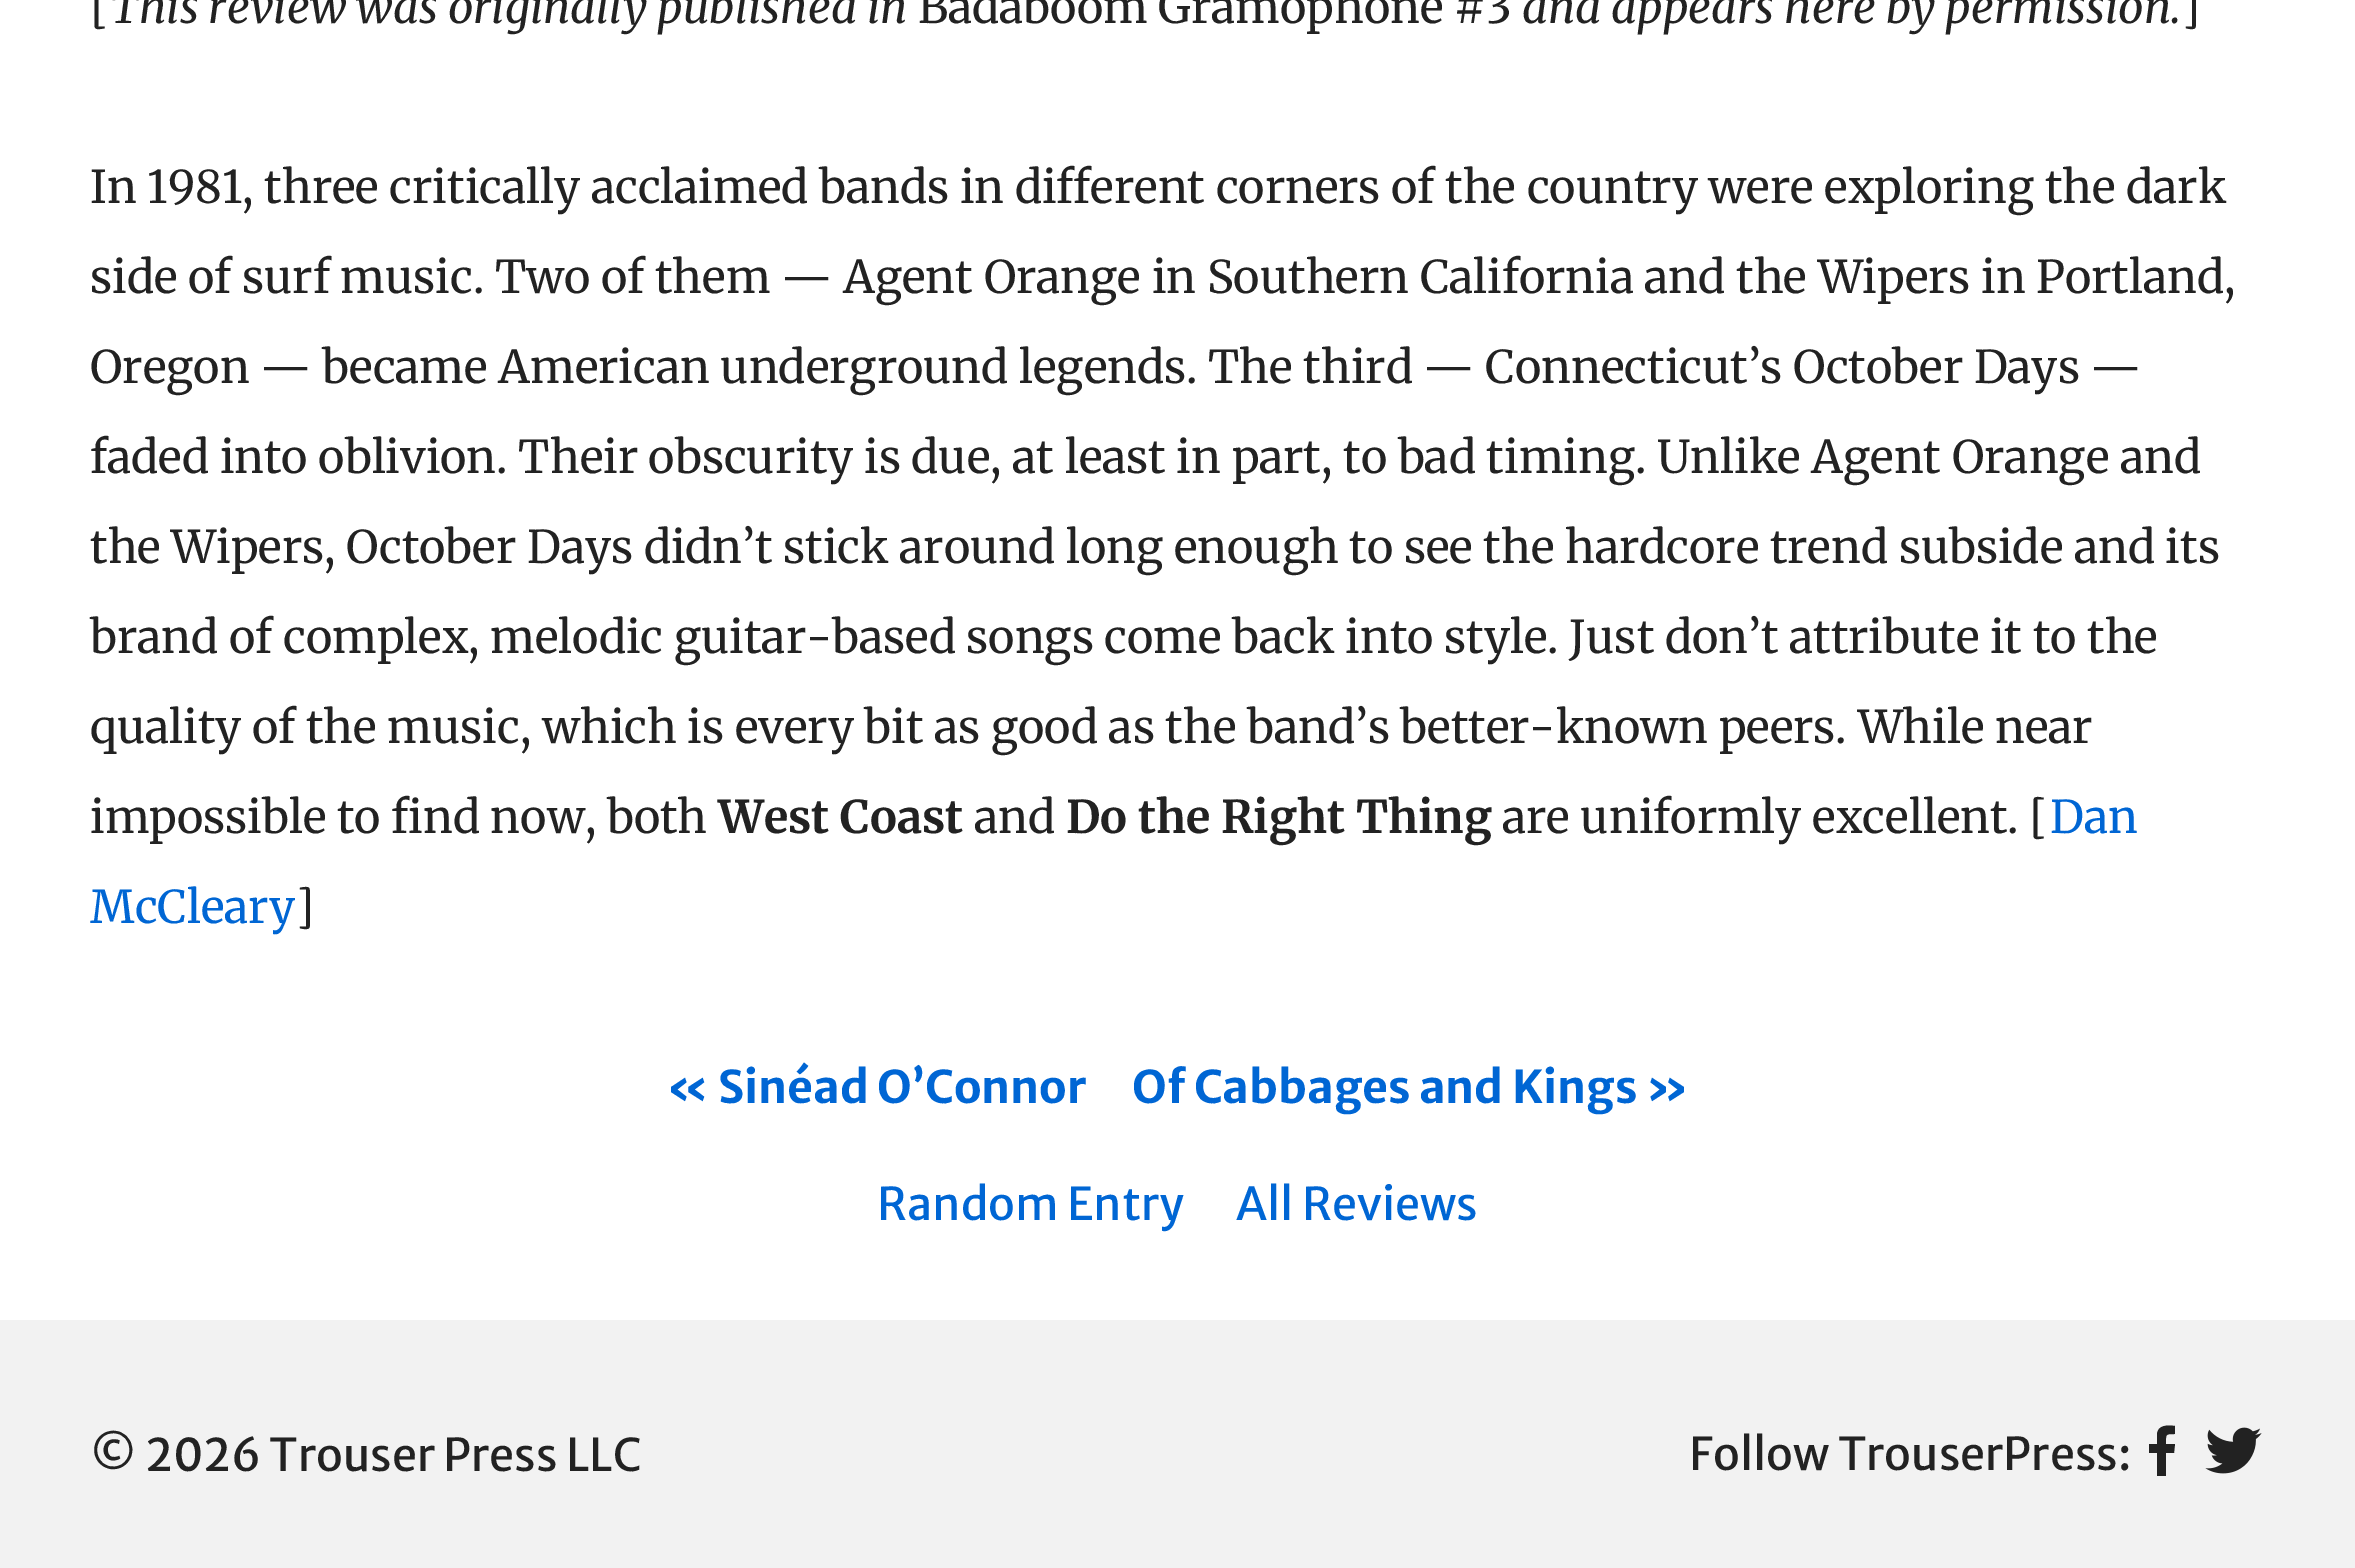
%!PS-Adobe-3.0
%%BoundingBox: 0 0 2355 1568
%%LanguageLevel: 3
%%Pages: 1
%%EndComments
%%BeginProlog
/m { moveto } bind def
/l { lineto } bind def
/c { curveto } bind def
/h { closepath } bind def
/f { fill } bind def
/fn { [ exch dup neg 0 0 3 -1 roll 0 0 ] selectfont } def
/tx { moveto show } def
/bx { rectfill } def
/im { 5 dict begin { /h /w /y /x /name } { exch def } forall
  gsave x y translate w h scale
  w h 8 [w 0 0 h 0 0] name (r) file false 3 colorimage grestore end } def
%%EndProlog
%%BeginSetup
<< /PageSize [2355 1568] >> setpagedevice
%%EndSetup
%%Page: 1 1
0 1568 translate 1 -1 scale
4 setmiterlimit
0.949 setgray
0 0 2355 1568 bx
1 setgray
0 0 2355 1320 bx
/Merriweather-Regular 45 fn
0.133 setgray
([) 90 23 tx
/Merriweather-Italic 45 fn
(This review was originally published in) 110 23 tx
/Merriweather-Regular 45 fn
(Badaboom Gramophone #3) 918 23 tx
/Merriweather-Italic 45 fn
(and appears here by permission.) 1522 23 tx
/Merriweather-Regular 45 fn
(]) 2181 23 tx
(In 1981, three critically acclaimed bands in different corners of the country were exploring the dark) 90 203 tx
(side of surf music. Two of them — Agent Orange in Southern California and the Wipers in Portland,) 90 293 tx
(Oregon — became American underground legends. The third — Connecticut’s October Days —) 90 383 tx
(faded into oblivion. Their obscurity is due, at least in part, to bad timing. Unlike Agent Orange and) 90 473 tx
(the Wipers, October Days didn’t stick around long enough to see the hardcore trend subside and its) 90 563 tx
(brand of complex, melodic guitar-based songs come back into style. Just don’t attribute it to the) 90 653 tx
(quality of the music, which is every bit as good as the band’s better-known peers. While near) 90 743 tx
(impossible to find now, both) 90 833 tx
/Merriweather-Bold 45 fn
(West Coast) 718 833 tx
/Merriweather-Regular 45 fn
(and) 974 833 tx
/Merriweather-Bold 45 fn
(Do the Right Thing) 1066 833 tx
/Merriweather-Regular 45 fn
(are uniformly excellent. [) 1502 833 tx
0 0.4 0.831 setrgbcolor
(Dan) 2050 833 tx
(McCleary) 90 923 tx
0.133 setgray
(]) 295 923 tx
/MerriweatherSans-Bold 45 fn
0 0.4 0.831 setrgbcolor
(« Sinéad O’Connor) 666 1103 tx
(Of Cabbages and Kings ») 1132 1103 tx
/MerriweatherSans-Regular 45 fn
(Random Entry) 877 1220 tx
(All Reviews) 1236 1220 tx
0.133 setgray
(© 2026 Trouser Press LLC) 90 1471 tx
(Follow TrouserPress:) 1689 1470 tx
2157 1476 m 2166 1476 l 2166 1453 l 2174 1453 l 2175 1444 l 2166 1444 l 2166 1434 2165 1434 2175 1434 c 2175 1426 l 2167 1425 2158 1425 2157 1434 c 2157 1444 l 2149 1444 l 2149 1453 l 2157 1453 l h f
(image0.raw) 2205 1427 57 47 im
showpage
%%EOF
